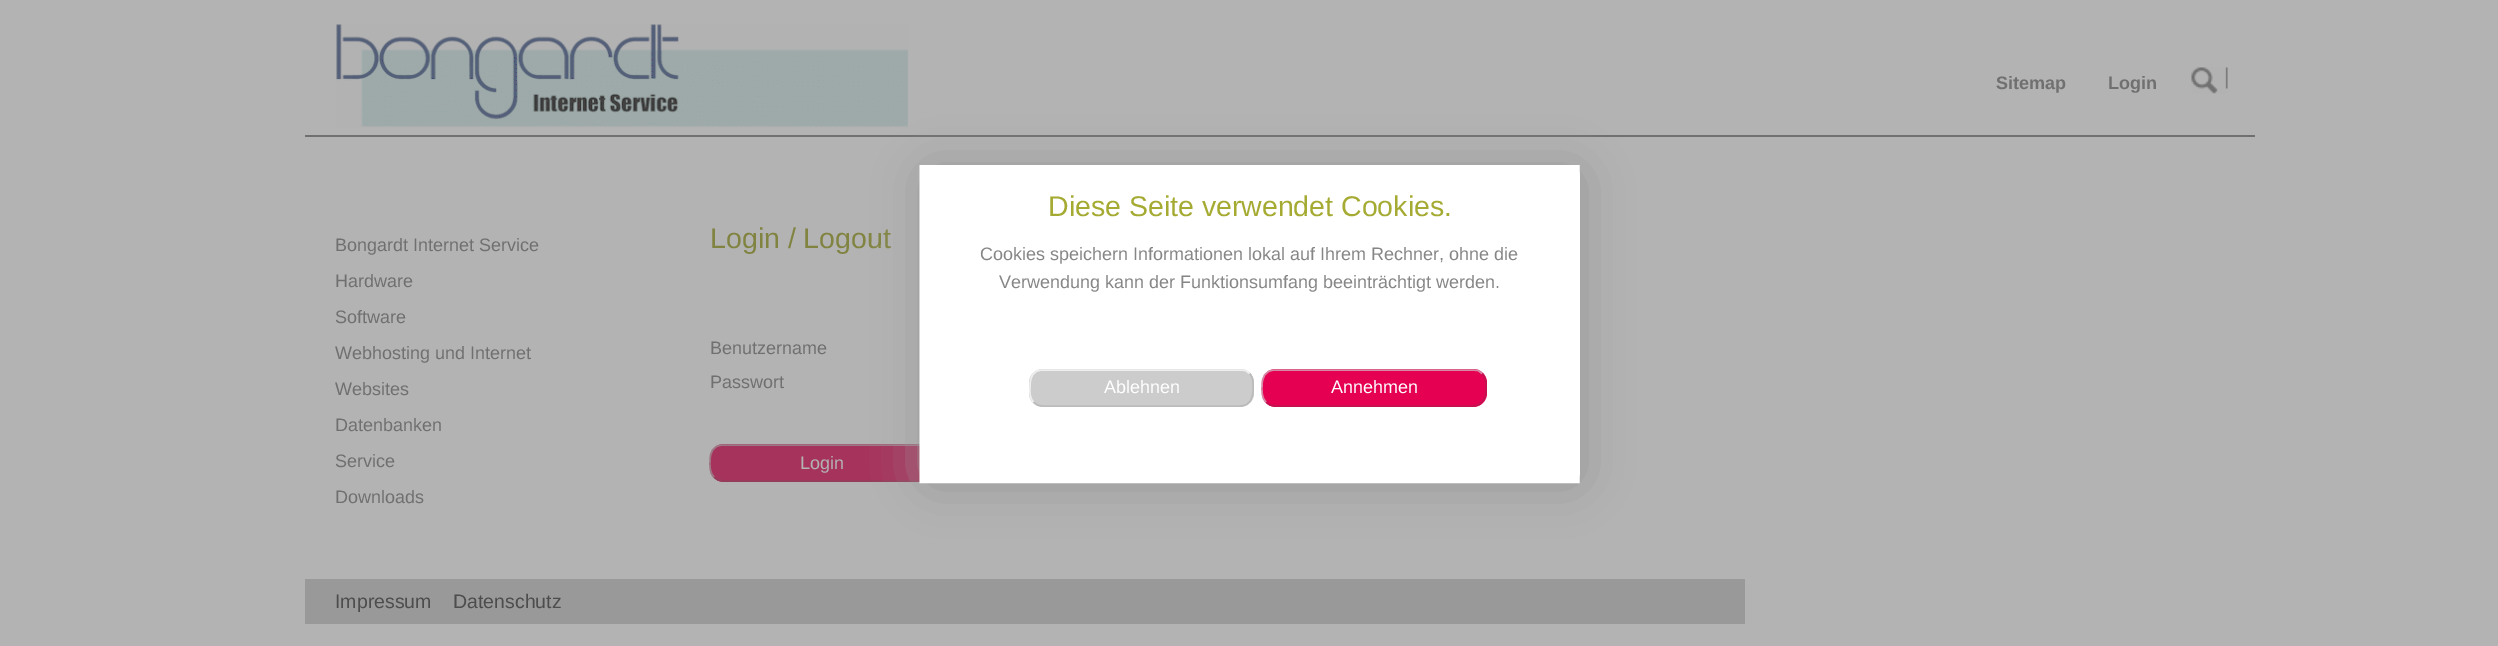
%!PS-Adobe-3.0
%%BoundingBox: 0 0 2498 646
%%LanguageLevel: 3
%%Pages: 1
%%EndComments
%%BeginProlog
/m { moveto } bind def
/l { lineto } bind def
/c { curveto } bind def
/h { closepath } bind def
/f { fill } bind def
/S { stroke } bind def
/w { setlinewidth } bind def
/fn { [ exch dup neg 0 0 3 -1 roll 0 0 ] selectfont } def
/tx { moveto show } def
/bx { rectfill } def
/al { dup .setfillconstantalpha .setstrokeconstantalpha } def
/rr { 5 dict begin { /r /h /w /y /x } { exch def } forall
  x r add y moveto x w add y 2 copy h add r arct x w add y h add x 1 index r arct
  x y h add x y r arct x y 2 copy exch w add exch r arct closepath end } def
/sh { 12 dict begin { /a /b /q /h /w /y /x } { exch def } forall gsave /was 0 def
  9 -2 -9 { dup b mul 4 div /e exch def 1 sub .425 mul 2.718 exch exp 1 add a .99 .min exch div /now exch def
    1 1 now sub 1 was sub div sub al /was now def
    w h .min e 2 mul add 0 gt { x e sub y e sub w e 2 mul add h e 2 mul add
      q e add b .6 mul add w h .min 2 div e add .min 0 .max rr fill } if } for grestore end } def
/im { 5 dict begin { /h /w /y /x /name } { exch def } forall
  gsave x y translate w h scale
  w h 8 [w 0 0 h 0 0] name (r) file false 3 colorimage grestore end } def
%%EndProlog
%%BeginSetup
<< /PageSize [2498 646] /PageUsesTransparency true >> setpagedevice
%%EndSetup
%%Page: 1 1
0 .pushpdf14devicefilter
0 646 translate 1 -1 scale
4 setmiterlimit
0.702 setgray
0 0 2498 646 bx
0.439 setgray
305 135 1950 2 bx
(image0.raw) 336 24 573 104 im
/LiberationSans-Bold 18 fn
(Sitemap) 1996 89 tx
(Login) 2108 89 tx
(image1.raw) 2191 67 37 27 im
/LiberationSans-Regular 18 fn
(Bongardt Internet Service) 335 251 tx
(Hardware) 335 287 tx
(Software) 335 323 tx
(Webhosting und Internet) 335 359 tx
(Websites) 335 395 tx
(Datenbanken) 335 431 tx
(Service) 335 467 tx
(Downloads) 335 503 tx
/LiberationSans-Regular 28.5 fn
0.506 0.518 0.255 setrgbcolor
(Login / Logout) 710 248 tx
/LiberationSans-Regular 18 fn
0.439 setgray
(Benutzername) 710 354 tx
(Passwort) 710 388 tx
0.651 0.2 0.361 setrgbcolor
710 444 225 38 14 rr f
0.584 0.235 0.357 setrgbcolor
1.5 w
930 448.5 m 934.5 453 934 459 934 464.5 c 934 473 931 480.5 921 481 c 723 481 l 718 480 l 714 477 l S
0.62 0.467 0.522 setrgbcolor
714 477 m 709.5 472.5 710 466.5 710 461 c 710 452.5 713 445 723 445 c 921 445 l 926 445.5 l 930 448.5 l S
0.702 setgray
(Login) 800 469 tx
0.6 setgray
305 579 1440 45 bx
/LiberationSans-Regular 19.5 fn
0.302 setgray
(Impressum) 335 608 tx
(Datenschutz) 453 608 tx
0.6 setgray
923 168 660 318 11 24 1 sh
1 setgray
920 165 660 318 11 rr f
30 w
934.5 180 m 1564.5 180 l 1564.5 468 l 934.5 468 l h S
/LiberationSans-Regular 28.5 fn
0.647 0.671 0.196 setrgbcolor
(Diese Seite verwendet Cookies.) 1048 216 tx
/LiberationSans-Regular 18 fn
0.525 setgray
(Cookies speichern Informationen lokal auf Ihrem Rechner, ohne die) 980 260 tx
(Verwendung kann der Funktionsumfang beeinträchtigt werden.) 999 288 tx
0.8 setgray
1029 369 225 38 14 rr f
0.733 setgray
1.5 w
1249.5 373.5 m 1254 378 1253 384 1253 389.5 c 1253 398 1250.5 405.5 1240.5 406 c 1042.5 406 l 1037.5 405 l 1033.5 402 l S
0.937 setgray
1033.5 402 m 1029 397.5 1030 391.5 1030 386 c 1030 377.5 1032.5 370 1042.5 370 c 1240.5 370 l 1245.5 370.5 l 1249.5 373.5 l S
1 setgray
(Ablehnen) 1104 393 tx
0.898 0 0.318 setrgbcolor
1262 369 225 38 14 rr f
0.765 0.071 0.314 setrgbcolor
1482 373.5 m 1486.5 378 1486 384 1486 389.5 c 1486 398 1483 405.5 1473 406 c 1275 406 l 1270 405 l 1266 402 l S
0.839 0.529 0.643 setrgbcolor
1266 402 m 1261.5 397.5 1262 391.5 1262 386 c 1262 377.5 1265 370 1275 370 c 1473 370 l 1478 370.5 l 1482 373.5 l S
1 setgray
(Annehmen) 1331 393 tx
.poppdf14devicefilter showpage
%%EOF
